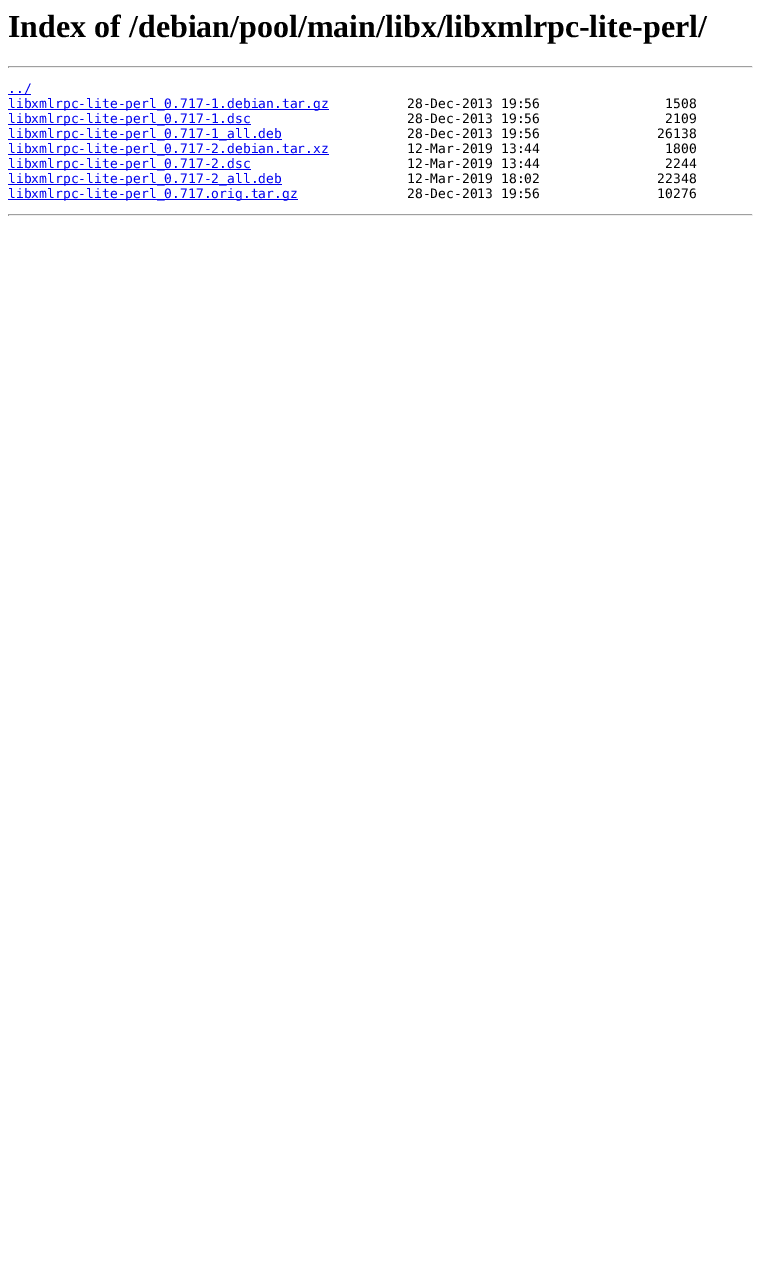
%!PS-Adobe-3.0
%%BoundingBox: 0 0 761 1276
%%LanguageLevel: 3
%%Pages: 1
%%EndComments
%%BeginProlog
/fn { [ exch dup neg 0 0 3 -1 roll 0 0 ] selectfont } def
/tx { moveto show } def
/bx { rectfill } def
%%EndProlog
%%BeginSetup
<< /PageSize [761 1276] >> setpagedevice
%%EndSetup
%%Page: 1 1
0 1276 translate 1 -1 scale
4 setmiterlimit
1 setgray
0 0 761 1276 bx
/LiberationSerif-Bold 32 fn
0 setgray
(Index of /debian/pool/main/libx/libxmlrpc-lite-perl/) 8 37 tx
0.624 setgray
8 66 745 1 bx
0.933 setgray
752 66 1 2 bx
8 67 745 1 bx
0.624 setgray
8 66 1 2 bx
0 0 0.933 setrgbcolor
8 94 23 1 bx
/DejaVuSansMono-Regular 13 fn
(../) 8 93 tx
8 109 321 1 bx
(libxmlrpc-lite-perl_0.717-1.debian.tar.gz) 8 108 tx
0 setgray
(28-Dec-2013 19:56                1508) 407 108 tx
0 0 0.933 setrgbcolor
8 124 243 1 bx
(libxmlrpc-lite-perl_0.717-1.dsc) 8 123 tx
0 setgray
(28-Dec-2013 19:56                2109) 407 123 tx
0 0 0.933 setrgbcolor
8 139 274 1 bx
(libxmlrpc-lite-perl_0.717-1_all.deb) 8 138 tx
0 setgray
(28-Dec-2013 19:56               26138) 407 138 tx
0 0 0.933 setrgbcolor
8 154 321 1 bx
(libxmlrpc-lite-perl_0.717-2.debian.tar.xz) 8 153 tx
0 setgray
(12-Mar-2019 13:44                1800) 407 153 tx
0 0 0.933 setrgbcolor
8 169 243 1 bx
(libxmlrpc-lite-perl_0.717-2.dsc) 8 168 tx
0 setgray
(12-Mar-2019 13:44                2244) 407 168 tx
0 0 0.933 setrgbcolor
8 184 274 1 bx
(libxmlrpc-lite-perl_0.717-2_all.deb) 8 183 tx
0 setgray
(12-Mar-2019 18:02               22348) 407 183 tx
0 0 0.933 setrgbcolor
8 199 290 1 bx
(libxmlrpc-lite-perl_0.717.orig.tar.gz) 8 198 tx
0 setgray
(28-Dec-2013 19:56               10276) 407 198 tx
0.624 setgray
8 214 745 1 bx
0.933 setgray
752 214 1 2 bx
8 215 745 1 bx
0.624 setgray
8 214 1 2 bx
showpage
%%EOF
